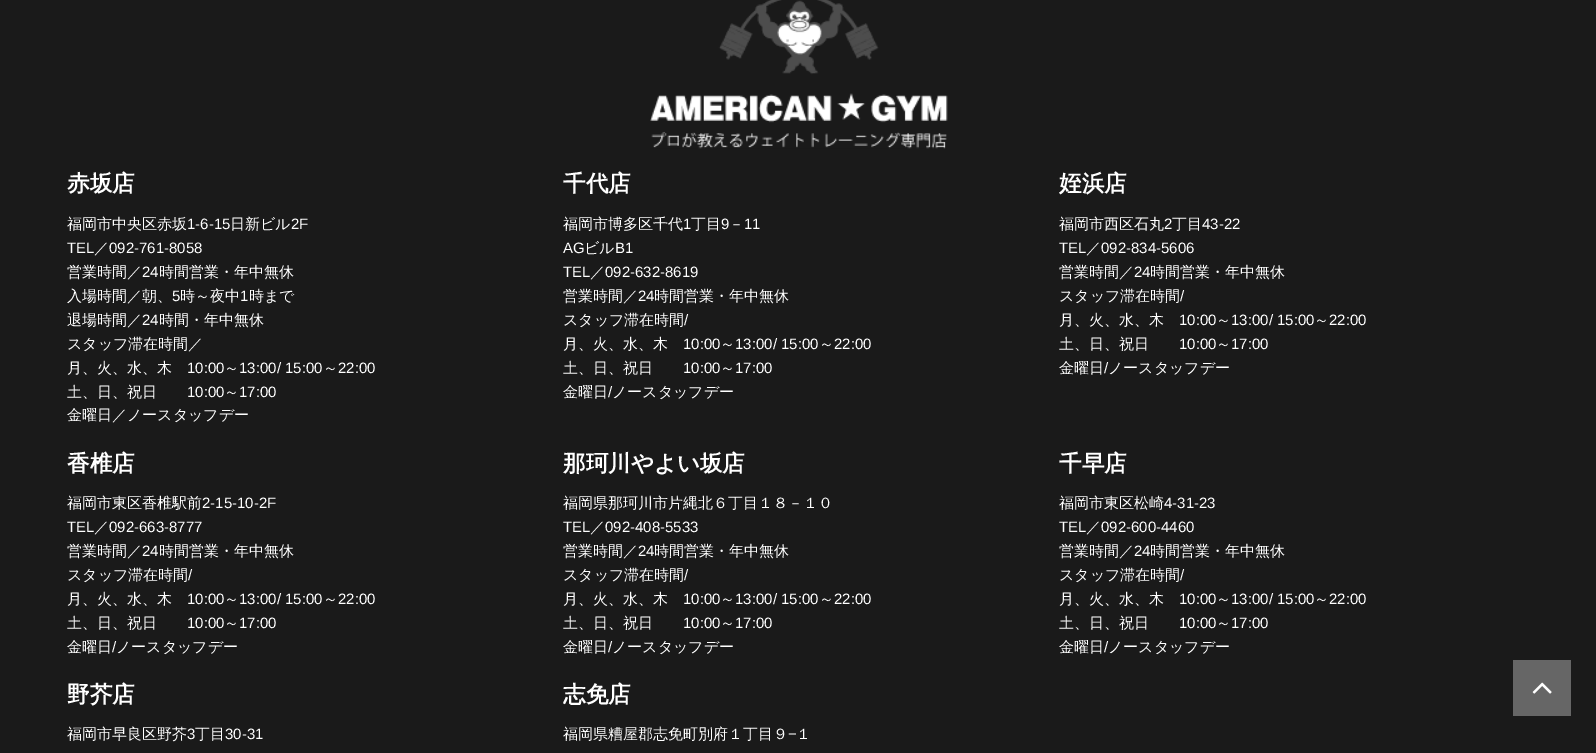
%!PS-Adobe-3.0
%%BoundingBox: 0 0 1596 753
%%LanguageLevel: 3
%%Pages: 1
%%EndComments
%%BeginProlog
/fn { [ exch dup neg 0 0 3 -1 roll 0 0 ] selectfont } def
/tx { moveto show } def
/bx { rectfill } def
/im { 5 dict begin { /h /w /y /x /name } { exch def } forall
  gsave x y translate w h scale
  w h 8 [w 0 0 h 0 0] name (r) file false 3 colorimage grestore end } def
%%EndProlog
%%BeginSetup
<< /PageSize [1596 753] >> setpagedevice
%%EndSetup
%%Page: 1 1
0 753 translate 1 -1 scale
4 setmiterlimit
0.102 setgray
0 0 1596 753 bx
(image0.raw) 650 0 298 149 im
/WenQuanYiZenHei-Bold 22.5 fn
1 setgray
(赤坂店) 67 191 tx
/WenQuanYiZenHei-Medium 15 fn
(福岡市中央区赤坂) 67 229 tx
/LiberationSans-Regular 15 fn
(1-6-15) 187 229 tx
/WenQuanYiZenHei-Medium 15 fn
(日新ビル) 230 229 tx
/LiberationSans-Regular 15 fn
(2F) 291 229 tx
(TEL) 67 253 tx
/WenQuanYiZenHei-Medium 15 fn
(／) 94 253 tx
/LiberationSans-Regular 15 fn
(092-761-8058) 109 253 tx
/WenQuanYiZenHei-Medium 15 fn
(営業時間／) 67 277 tx
/LiberationSans-Regular 15 fn
(24) 142 277 tx
/WenQuanYiZenHei-Medium 15 fn
(時間営業・年中無休) 159 277 tx
(入場時間／朝、) 67 301 tx
/LiberationSans-Regular 15 fn
(5) 172 301 tx
/WenQuanYiZenHei-Medium 15 fn
(時～夜中) 180 301 tx
/LiberationSans-Regular 15 fn
(1) 240 301 tx
/WenQuanYiZenHei-Medium 15 fn
(時まで) 249 301 tx
(退場時間／) 67 325 tx
/LiberationSans-Regular 15 fn
(24) 142 325 tx
/WenQuanYiZenHei-Medium 15 fn
(時間・年中無休) 159 325 tx
(スタッフ滞在時間／) 67 349 tx
(月、火、水、木) 67 373 tx
/LiberationSans-Regular 15 fn
(10:00) 187 373 tx
/WenQuanYiZenHei-Medium 15 fn
(～) 224 373 tx
/LiberationSans-Regular 15 fn
(13:00/ 15:00) 239 373 tx
/WenQuanYiZenHei-Medium 15 fn
(～) 323 373 tx
/LiberationSans-Regular 15 fn
(22:00) 338 373 tx
/WenQuanYiZenHei-Medium 15 fn
(土、日、祝日) 67 397 tx
/LiberationSans-Regular 15 fn
(10:00) 187 397 tx
/WenQuanYiZenHei-Medium 15 fn
(～) 224 397 tx
/LiberationSans-Regular 15 fn
(17:00) 239 397 tx
/WenQuanYiZenHei-Medium 15 fn
(金曜日／ノースタッフデー) 67 420 tx
/WenQuanYiZenHei-Bold 22.5 fn
(千代店) 563 191 tx
/WenQuanYiZenHei-Medium 15 fn
(福岡市博多区千代) 563 229 tx
/LiberationSans-Regular 15 fn
(1) 683 229 tx
/WenQuanYiZenHei-Medium 15 fn
(丁目) 691 229 tx
/LiberationSans-Regular 15 fn
(9) 721 229 tx
/WenQuanYiZenHei-Medium 15 fn
(－) 729 229 tx
/LiberationSans-Regular 15 fn
(11) 744 229 tx
(AG) 563 253 tx
/WenQuanYiZenHei-Medium 15 fn
(ビル) 584 253 tx
/LiberationSans-Regular 15 fn
(B1) 615 253 tx
(TEL) 563 277 tx
/WenQuanYiZenHei-Medium 15 fn
(／) 590 277 tx
/LiberationSans-Regular 15 fn
(092-632-8619) 605 277 tx
/WenQuanYiZenHei-Medium 15 fn
(営業時間／) 563 301 tx
/LiberationSans-Regular 15 fn
(24) 638 301 tx
/WenQuanYiZenHei-Medium 15 fn
(時間営業・年中無休) 654 301 tx
(スタッフ滞在時間) 563 325 tx
/LiberationSans-Regular 15 fn
(/) 684 325 tx
/WenQuanYiZenHei-Medium 15 fn
(月、火、水、木) 563 349 tx
/LiberationSans-Regular 15 fn
(10:00) 683 349 tx
/WenQuanYiZenHei-Medium 15 fn
(～) 720 349 tx
/LiberationSans-Regular 15 fn
(13:00/ 15:00) 735 349 tx
/WenQuanYiZenHei-Medium 15 fn
(～) 819 349 tx
/LiberationSans-Regular 15 fn
(22:00) 834 349 tx
/WenQuanYiZenHei-Medium 15 fn
(土、日、祝日) 563 373 tx
/LiberationSans-Regular 15 fn
(10:00) 683 373 tx
/WenQuanYiZenHei-Medium 15 fn
(～) 720 373 tx
/LiberationSans-Regular 15 fn
(17:00) 735 373 tx
/WenQuanYiZenHei-Medium 15 fn
(金曜日) 563 397 tx
/LiberationSans-Regular 15 fn
(/) 608 397 tx
/WenQuanYiZenHei-Medium 15 fn
(ノースタッフデー) 612 397 tx
/WenQuanYiZenHei-Bold 22.5 fn
(姪浜店) 1059 191 tx
/WenQuanYiZenHei-Medium 15 fn
(福岡市西区石丸) 1059 229 tx
/LiberationSans-Regular 15 fn
(2) 1164 229 tx
/WenQuanYiZenHei-Medium 15 fn
(丁目) 1172 229 tx
/LiberationSans-Regular 15 fn
(43-22) 1202 229 tx
(TEL) 1059 253 tx
/WenQuanYiZenHei-Medium 15 fn
(／) 1086 253 tx
/LiberationSans-Regular 15 fn
(092-834-5606) 1101 253 tx
/WenQuanYiZenHei-Medium 15 fn
(営業時間／) 1059 277 tx
/LiberationSans-Regular 15 fn
(24) 1134 277 tx
/WenQuanYiZenHei-Medium 15 fn
(時間営業・年中無休) 1150 277 tx
(スタッフ滞在時間) 1059 301 tx
/LiberationSans-Regular 15 fn
(/) 1180 301 tx
/WenQuanYiZenHei-Medium 15 fn
(月、火、水、木) 1059 325 tx
/LiberationSans-Regular 15 fn
(10:00) 1179 325 tx
/WenQuanYiZenHei-Medium 15 fn
(～) 1216 325 tx
/LiberationSans-Regular 15 fn
(13:00/ 15:00) 1231 325 tx
/WenQuanYiZenHei-Medium 15 fn
(～) 1314 325 tx
/LiberationSans-Regular 15 fn
(22:00) 1329 325 tx
/WenQuanYiZenHei-Medium 15 fn
(土、日、祝日) 1059 349 tx
/LiberationSans-Regular 15 fn
(10:00) 1179 349 tx
/WenQuanYiZenHei-Medium 15 fn
(～) 1216 349 tx
/LiberationSans-Regular 15 fn
(17:00) 1231 349 tx
/WenQuanYiZenHei-Medium 15 fn
(金曜日) 1059 373 tx
/LiberationSans-Regular 15 fn
(/) 1104 373 tx
/WenQuanYiZenHei-Medium 15 fn
(ノースタッフデー) 1108 373 tx
/WenQuanYiZenHei-Bold 22.5 fn
(香椎店) 67 471 tx
/WenQuanYiZenHei-Medium 15 fn
(福岡市東区香椎駅前) 67 508 tx
/LiberationSans-Regular 15 fn
(2-15-10-2F) 202 508 tx
(TEL) 67 532 tx
/WenQuanYiZenHei-Medium 15 fn
(／) 94 532 tx
/LiberationSans-Regular 15 fn
(092-663-8777) 109 532 tx
/WenQuanYiZenHei-Medium 15 fn
(営業時間／) 67 556 tx
/LiberationSans-Regular 15 fn
(24) 142 556 tx
/WenQuanYiZenHei-Medium 15 fn
(時間営業・年中無休) 159 556 tx
(スタッフ滞在時間) 67 580 tx
/LiberationSans-Regular 15 fn
(/) 188 580 tx
/WenQuanYiZenHei-Medium 15 fn
(月、火、水、木) 67 604 tx
/LiberationSans-Regular 15 fn
(10:00) 187 604 tx
/WenQuanYiZenHei-Medium 15 fn
(～) 224 604 tx
/LiberationSans-Regular 15 fn
(13:00/ 15:00) 239 604 tx
/WenQuanYiZenHei-Medium 15 fn
(～) 323 604 tx
/LiberationSans-Regular 15 fn
(22:00) 338 604 tx
/WenQuanYiZenHei-Medium 15 fn
(土、日、祝日) 67 628 tx
/LiberationSans-Regular 15 fn
(10:00) 187 628 tx
/WenQuanYiZenHei-Medium 15 fn
(～) 224 628 tx
/LiberationSans-Regular 15 fn
(17:00) 239 628 tx
/WenQuanYiZenHei-Medium 15 fn
(金曜日) 67 652 tx
/LiberationSans-Regular 15 fn
(/) 112 652 tx
/WenQuanYiZenHei-Medium 15 fn
(ノースタッフデー) 116 652 tx
/WenQuanYiZenHei-Bold 22.5 fn
(那珂川やよい坂店) 563 471 tx
/WenQuanYiZenHei-Medium 15 fn
(福岡県那珂川市片縄北６丁目１８－１０) 563 508 tx
/LiberationSans-Regular 15 fn
(TEL) 563 532 tx
/WenQuanYiZenHei-Medium 15 fn
(／) 590 532 tx
/LiberationSans-Regular 15 fn
(092-408-5533) 605 532 tx
/WenQuanYiZenHei-Medium 15 fn
(営業時間／) 563 556 tx
/LiberationSans-Regular 15 fn
(24) 638 556 tx
/WenQuanYiZenHei-Medium 15 fn
(時間営業・年中無休) 654 556 tx
(スタッフ滞在時間) 563 580 tx
/LiberationSans-Regular 15 fn
(/) 684 580 tx
/WenQuanYiZenHei-Medium 15 fn
(月、火、水、木) 563 604 tx
/LiberationSans-Regular 15 fn
(10:00) 683 604 tx
/WenQuanYiZenHei-Medium 15 fn
(～) 720 604 tx
/LiberationSans-Regular 15 fn
(13:00/ 15:00) 735 604 tx
/WenQuanYiZenHei-Medium 15 fn
(～) 819 604 tx
/LiberationSans-Regular 15 fn
(22:00) 834 604 tx
/WenQuanYiZenHei-Medium 15 fn
(土、日、祝日) 563 628 tx
/LiberationSans-Regular 15 fn
(10:00) 683 628 tx
/WenQuanYiZenHei-Medium 15 fn
(～) 720 628 tx
/LiberationSans-Regular 15 fn
(17:00) 735 628 tx
/WenQuanYiZenHei-Medium 15 fn
(金曜日) 563 652 tx
/LiberationSans-Regular 15 fn
(/) 608 652 tx
/WenQuanYiZenHei-Medium 15 fn
(ノースタッフデー) 612 652 tx
/WenQuanYiZenHei-Bold 22.5 fn
(千早店) 1059 471 tx
/WenQuanYiZenHei-Medium 15 fn
(福岡市東区松崎) 1059 508 tx
/LiberationSans-Regular 15 fn
(4-31-23) 1164 508 tx
(TEL) 1059 532 tx
/WenQuanYiZenHei-Medium 15 fn
(／) 1086 532 tx
/LiberationSans-Regular 15 fn
(092-600-4460) 1101 532 tx
/WenQuanYiZenHei-Medium 15 fn
(営業時間／) 1059 556 tx
/LiberationSans-Regular 15 fn
(24) 1134 556 tx
/WenQuanYiZenHei-Medium 15 fn
(時間営業・年中無休) 1150 556 tx
(スタッフ滞在時間) 1059 580 tx
/LiberationSans-Regular 15 fn
(/) 1180 580 tx
/WenQuanYiZenHei-Medium 15 fn
(月、火、水、木) 1059 604 tx
/LiberationSans-Regular 15 fn
(10:00) 1179 604 tx
/WenQuanYiZenHei-Medium 15 fn
(～) 1216 604 tx
/LiberationSans-Regular 15 fn
(13:00/ 15:00) 1231 604 tx
/WenQuanYiZenHei-Medium 15 fn
(～) 1314 604 tx
/LiberationSans-Regular 15 fn
(22:00) 1329 604 tx
/WenQuanYiZenHei-Medium 15 fn
(土、日、祝日) 1059 628 tx
/LiberationSans-Regular 15 fn
(10:00) 1179 628 tx
/WenQuanYiZenHei-Medium 15 fn
(～) 1216 628 tx
/LiberationSans-Regular 15 fn
(17:00) 1231 628 tx
/WenQuanYiZenHei-Medium 15 fn
(金曜日) 1059 652 tx
/LiberationSans-Regular 15 fn
(/) 1104 652 tx
/WenQuanYiZenHei-Medium 15 fn
(ノースタッフデー) 1108 652 tx
/WenQuanYiZenHei-Bold 22.5 fn
(野芥店) 67 702 tx
/WenQuanYiZenHei-Medium 15 fn
(福岡市早良区野芥) 67 739 tx
/LiberationSans-Regular 15 fn
(3) 187 739 tx
/WenQuanYiZenHei-Medium 15 fn
(丁目) 195 739 tx
/LiberationSans-Regular 15 fn
(30-31) 225 739 tx
/WenQuanYiZenHei-Bold 22.5 fn
(志免店) 563 702 tx
/WenQuanYiZenHei-Medium 15 fn
(福岡県糟屋郡志免町別府１丁目９) 563 739 tx
/LiberationSans-Regular 15 fn
(−) 788 739 tx
/WenQuanYiZenHei-Medium 15 fn
(１) 796 739 tx
0.4 setgray
1513 660 58 56 bx
(image1.raw) 1532 682 20 12 im
showpage
%%EOF
